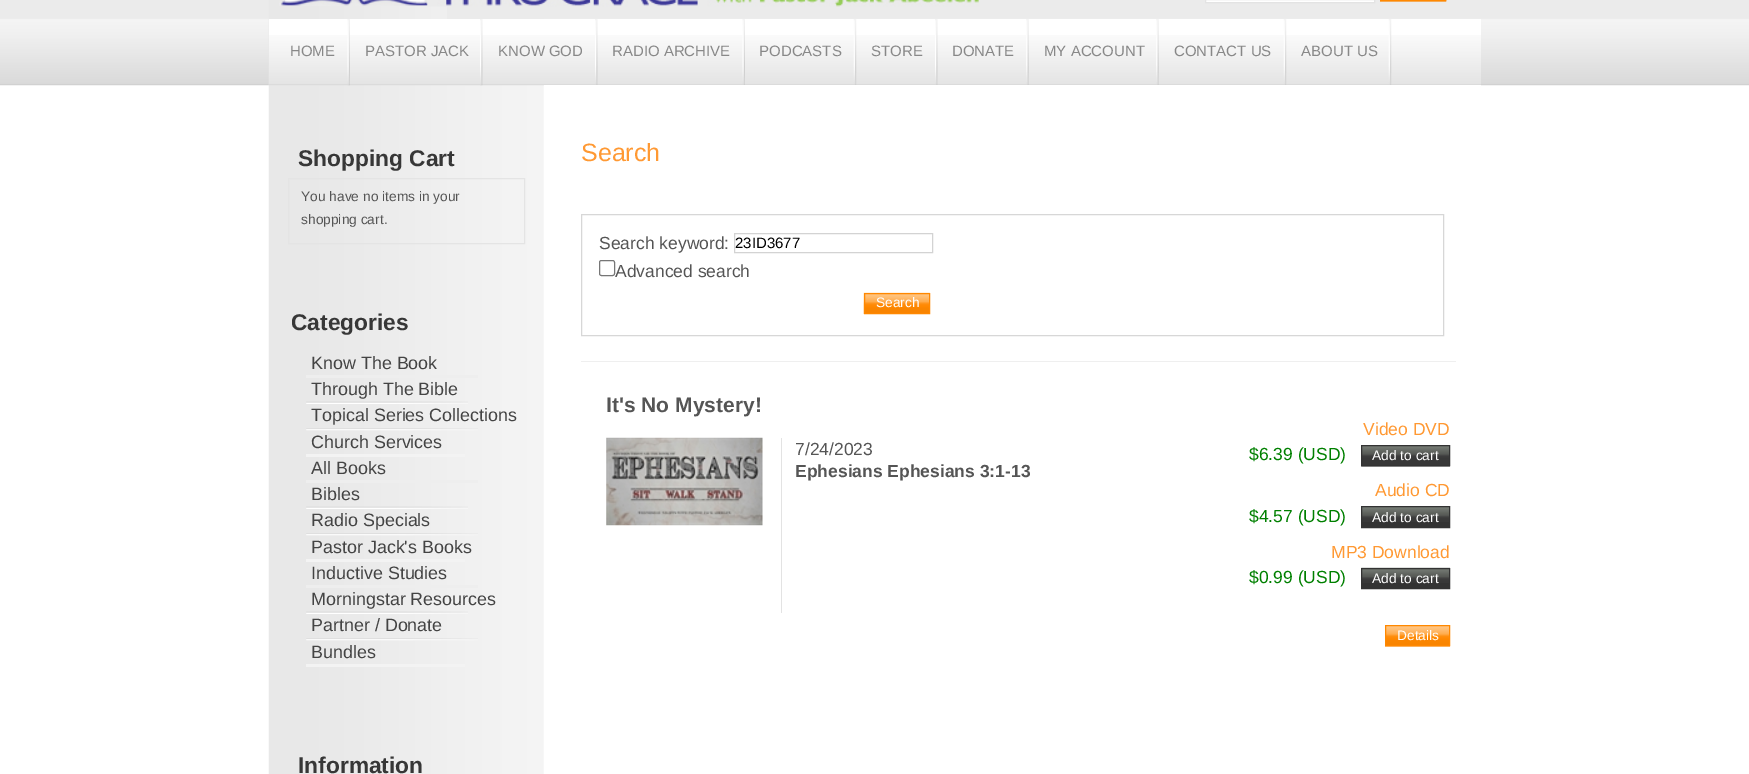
%!PS-Adobe-3.0
%%BoundingBox: 0 0 1749 774
%%LanguageLevel: 3
%%Pages: 1
%%EndComments
%%BeginProlog
/m { moveto } bind def
/l { lineto } bind def
/h { closepath } bind def
/f { fill } bind def
/S { stroke } bind def
/q { gsave } bind def
/Q { grestore } bind def
/fn { [ exch dup neg 0 0 3 -1 roll 0 0 ] selectfont } def
/tx { moveto show } def
/bx { rectfill } def
/rr { 5 dict begin { /r /h /w /y /x } { exch def } forall
  x r add y moveto x w add y 2 copy h add r arct x w add y h add x 1 index r arct
  x y h add x y r arct x y 2 copy exch w add exch r arct closepath end } def
/im { 5 dict begin { /h /w /y /x /name } { exch def } forall
  gsave x y translate w h scale
  w h 8 [w 0 0 h 0 0] name (r) file false 3 colorimage grestore end } def
%%EndProlog
%%BeginSetup
<< /PageSize [1749 774] >> setpagedevice
%%EndSetup
%%Page: 1 1
0 774 translate 1 -1 scale
4 setmiterlimit
1 setgray
0 0 1749 774 bx
(image0.raw) 0 0 1749 86 im
(image1.raw) 268 0 276 774 im
0.922 setgray
447 0 97 19 bx
(image2.raw) 279 0 149 6 im
(image3.raw) 427 0 552 7 im
1 setgray
1205.5 -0.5 m 1374.5 -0.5 l 1374.5 2.5 l 1205.5 2.5 l h q f Q
0.89 setgray
S
(image4.raw) 1380 0 67 2 im
1 0.533 0 setrgbcolor
1380.5 -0.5 65 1 rectstroke
1 setgray
269 19 1212 16 bx
(image5.raw) 269 35 1212 51 im
(image6.raw) 347 19 3 67 im
/LiberationSans-Regular 15 fn
0.533 setgray
(HOME) 290 56 tx
(image7.raw) 480 19 3 67 im
(PASTOR JACK) 365 56 tx
(image8.raw) 595 19 3 66 im
(KNOW GOD) 498 56 tx
(image9.raw) 742 19 3 66 im
(RADIO ARCHIVE) 612 56 tx
(image10.raw) 853 19 4 66 im
(PODCASTS) 759 56 tx
(image8.raw) 935 19 3 66 im
(STORE) 871 56 tx
(image11.raw) 1026 19 3 66 im
(DONATE) 952 56 tx
(image11.raw) 1156 19 3 66 im
(MY ACCOUNT) 1044 56 tx
(image10.raw) 1283 19 4 66 im
(CONTACT US) 1174 56 tx
(image10.raw) 1388 19 4 66 im
(ABOUT US) 1301 56 tx
/LiberationSans-Bold 22.75 fn
0.216 setgray
(Shopping Cart) 298 166 tx
0.894 setgray
288.5 178.5 236 65 rectstroke
/LiberationSans-Regular 13.75 fn
0.333 setgray
(You have no items in your) 301 201 tx
(shopping cart.) 301 224 tx
/LiberationSans-Bold 22.75 fn
0.216 setgray
(Categories) 291 330 tx
0.933 setgray
306 375 172 3 bx
/LiberationSans-Regular 17.9 fn
0.267 setgray
(Know The Book) 311 369 tx
(image12.raw) 306 401 162 3 im
(Through The Bible) 311 395 tx
(image13.raw) 306 428 172 3 im
(Topical Series Collections) 311 421 tx
0.953 setgray
306 454 159 3 bx
0.267 setgray
(Church Services) 311 448 tx
0.933 setgray
306 480 172 3 bx
0.267 setgray
(All Books) 311 474 tx
(image12.raw) 306 506 162 3 im
(Bibles) 311 500 tx
(image13.raw) 306 533 172 3 im
(Radio Specials) 311 526 tx
0.953 setgray
306 559 159 3 bx
0.267 setgray
(Pastor Jack's Books) 311 553 tx
0.933 setgray
306 585 172 3 bx
0.267 setgray
(Inductive Studies) 311 579 tx
(image12.raw) 306 611 162 3 im
(Morningstar Resources) 311 605 tx
(image13.raw) 306 638 172 3 im
(Partner / Donate) 311 631 tx
0.953 setgray
306 664 159 3 bx
0.267 setgray
(Bundles) 311 658 tx
/LiberationSans-Bold 22.75 fn
0.216 setgray
(Information) 298 773 tx
1 setgray
544 85 937 1 bx
/LiberationSans-Regular 25 fn
1 0.6 0.2 setrgbcolor
(Search) 581 161 tx
0.843 setgray
581.5 214.5 862 121 rectstroke
/LiberationSans-Regular 17.5 fn
0.333 setgray
(Search keyword:) 599 249 tx
0.827 setgray
734.5 233.5 198 19 rectstroke
/LiberationSans-Regular 15 fn
0 setgray
(23ID3677) 735 248 tx
0.463 setgray
599.5 260.5 15 15 2 rr S
/LiberationSans-Regular 17.5 fn
0.333 setgray
(Advanced search) 615 277 tx
(image14.raw) 863 292 67 22 im
1 0.533 0 setrgbcolor
864.5 293.5 65 20 rectstroke
/LiberationSans-Regular 13.75 fn
1 setgray
(Search) 876 307 tx
0.937 setgray
581 361 875 1 bx
/LiberationSans-Bold 21 fn
0.333 setgray
(It's No Mystery!) 606 412 tx
(image15.raw) 606 437 157 89 im
0.89 setgray
781 438 1 175 bx
/LiberationSans-Regular 17.5 fn
0.333 setgray
(7/24/2023) 795 455 tx
/LiberationSans-Bold 17.5 fn
(Ephesians Ephesians 3:1-13) 795 477 tx
/LiberationSans-Regular 17.5 fn
1 0.6 0.2 setrgbcolor
(Video DVD) 1363 435 tx
0 0.502 0 setrgbcolor
($6.39 \(USD\)) 1249 460 tx
(image16.raw) 1361 446 89 21 im
0.2 setgray
1361.5 445.5 88 20 rectstroke
/LiberationSans-Regular 13.75 fn
1 setgray
(Add to cart) 1372 460 tx
/LiberationSans-Regular 17.5 fn
1 0.6 0.2 setrgbcolor
(Audio CD) 1375 496 tx
0 0.502 0 setrgbcolor
($4.57 \(USD\)) 1249 522 tx
0.2 setgray
1362 522 87 5 bx
(image17.raw) 1362 507 87 15 im
1361.5 506.5 88 21 rectstroke
/LiberationSans-Regular 13.75 fn
1 setgray
(Add to cart) 1372 522 tx
/LiberationSans-Regular 17.5 fn
1 0.6 0.2 setrgbcolor
(MP3 Download) 1331 558 tx
0 0.502 0 setrgbcolor
($0.99 \(USD\)) 1249 583 tx
0.2 setgray
1362 583 87 5 bx
(image18.raw) 1361 567 89 16 im
1361.5 568.5 88 20 rectstroke
/LiberationSans-Regular 13.75 fn
1 setgray
(Add to cart) 1372 583 tx
(image19.raw) 1385 626 65 21 im
1 0.533 0 setrgbcolor
1385.5 625.5 64 20 rectstroke
1 setgray
(Details) 1397 640 tx
showpage
%%EOF
